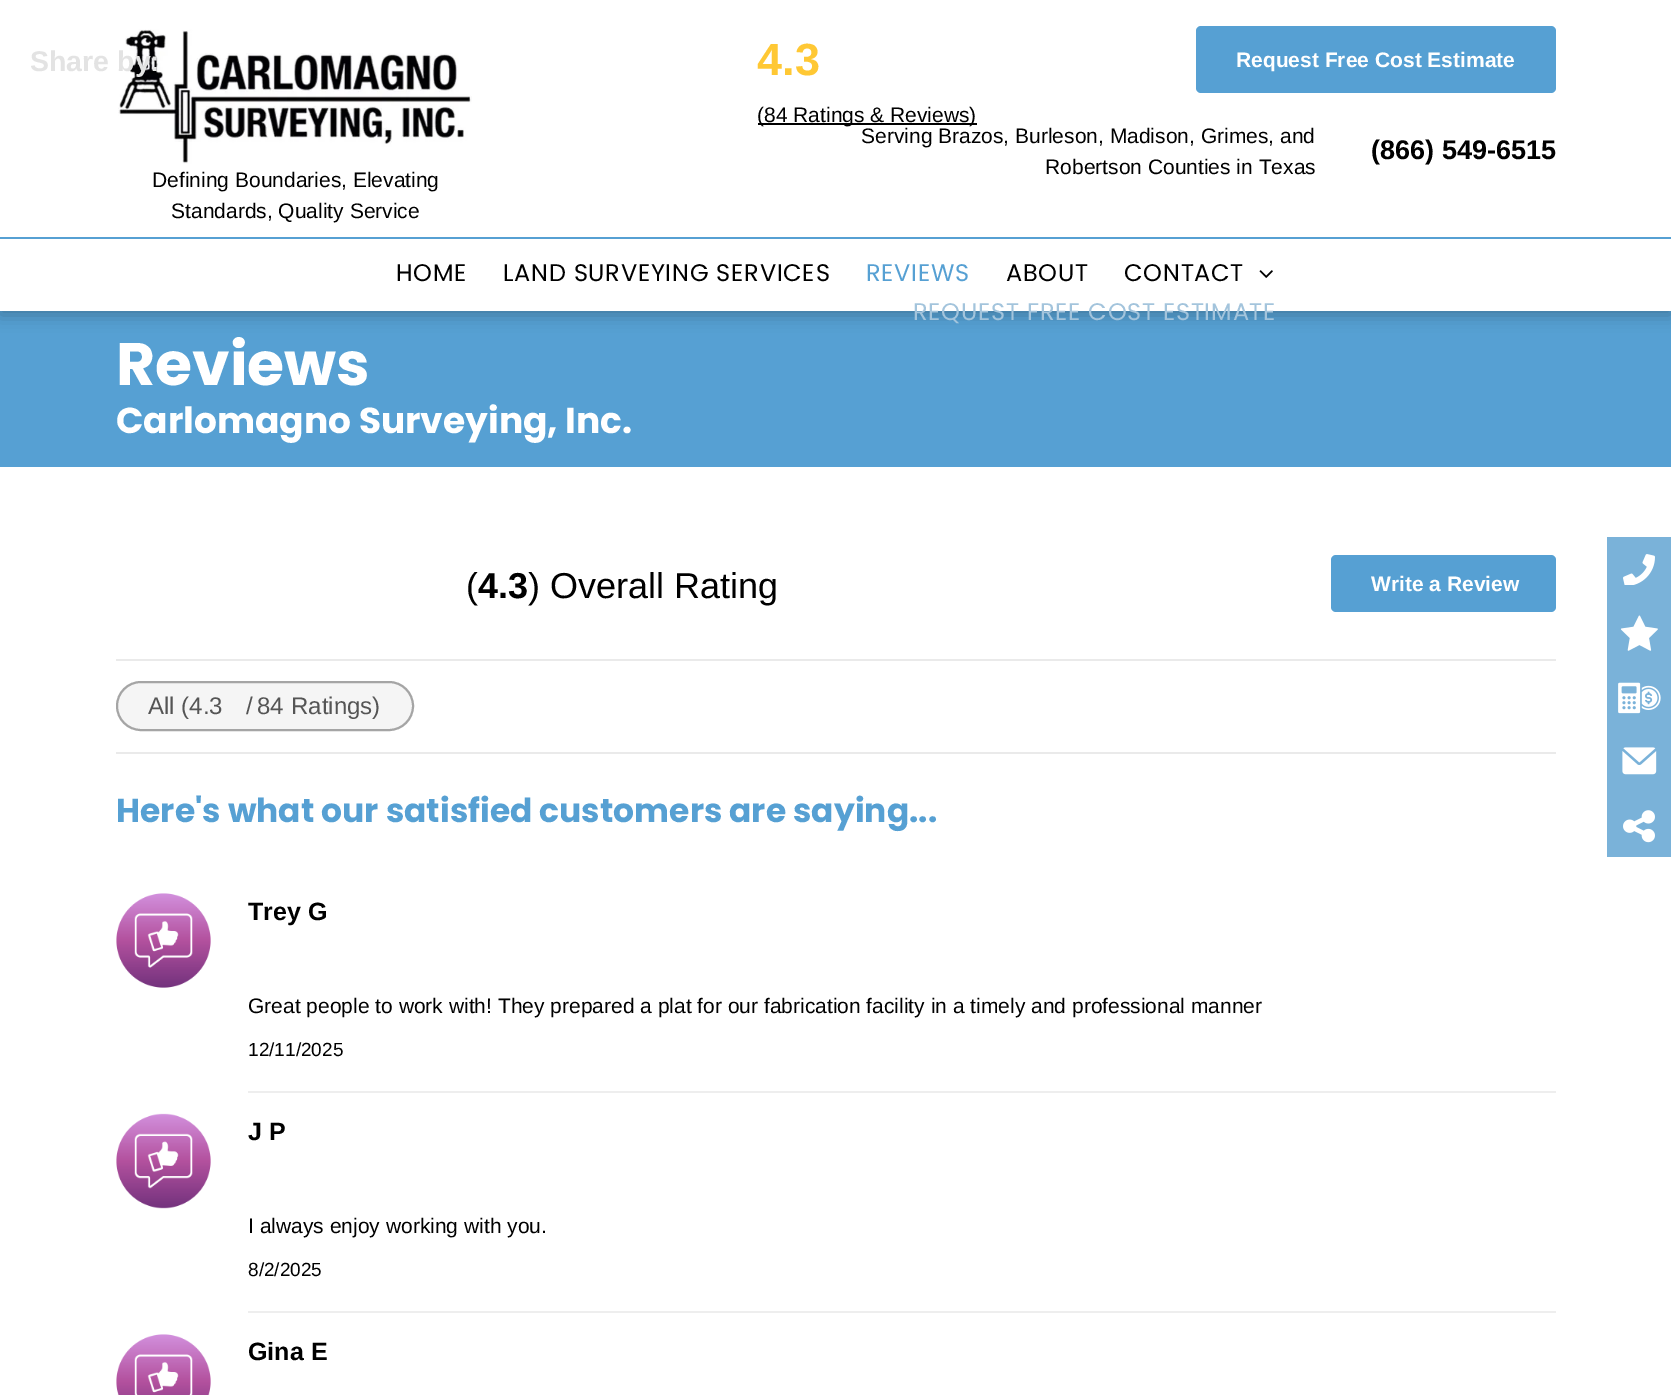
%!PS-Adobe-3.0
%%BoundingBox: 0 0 1671 1395
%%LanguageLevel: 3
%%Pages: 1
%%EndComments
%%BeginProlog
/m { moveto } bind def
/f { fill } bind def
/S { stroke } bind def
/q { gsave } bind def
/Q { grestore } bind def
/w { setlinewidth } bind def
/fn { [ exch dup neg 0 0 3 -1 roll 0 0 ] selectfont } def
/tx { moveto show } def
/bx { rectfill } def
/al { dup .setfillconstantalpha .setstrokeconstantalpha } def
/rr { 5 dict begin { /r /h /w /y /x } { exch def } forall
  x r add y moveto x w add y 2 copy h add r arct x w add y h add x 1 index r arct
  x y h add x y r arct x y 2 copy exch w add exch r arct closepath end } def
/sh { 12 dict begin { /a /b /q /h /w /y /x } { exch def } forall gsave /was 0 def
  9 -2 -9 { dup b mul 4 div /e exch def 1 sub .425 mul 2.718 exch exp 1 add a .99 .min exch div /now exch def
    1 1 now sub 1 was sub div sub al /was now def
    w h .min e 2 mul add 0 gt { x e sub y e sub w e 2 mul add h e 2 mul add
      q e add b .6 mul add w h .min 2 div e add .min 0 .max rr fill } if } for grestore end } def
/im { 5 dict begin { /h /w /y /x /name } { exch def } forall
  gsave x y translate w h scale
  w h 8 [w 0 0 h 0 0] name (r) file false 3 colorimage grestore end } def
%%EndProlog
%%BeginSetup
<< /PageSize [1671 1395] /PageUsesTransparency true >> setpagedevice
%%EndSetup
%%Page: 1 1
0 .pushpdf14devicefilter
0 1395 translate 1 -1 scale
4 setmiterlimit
1 setgray
0 0 1671 1395 bx
0.337 0.627 0.827 setrgbcolor
0 311 1671 156 bx
0 setgray
0 5 1671 310 0 8 0.25 sh
1 setgray
0 0 1671 311 bx
(image0.raw) 118 29 354 135 im
/LiberationSans-Bold 28.5 fn
0.89 setgray
(Share by:) 30 71 tx
/LiberationSans-Bold 45 fn
1 0.784 0.204 setrgbcolor
(4.3) 757 75 tx
0 setgray
758 123 219 2 bx
/LiberationSans-Regular 21 fn
(\(84 Ratings & Reviews\)) 757 122 tx
0.337 0.627 0.827 setrgbcolor
1196 26 360 67 5 rr f
/LiberationSans-Bold 21 fn
1 setgray
(Request Free Cost Estimate) 1236 67 tx
/LiberationSans-Regular 21 fn
0 setgray
(Serving Brazos, Burleson, Madison, Grimes, and) 861 143 tx
(Robertson Counties in Texas) 1045 174 tx
/LiberationSans-Bold 27 fn
(\(866\) 549-6515) 1371 159 tx
/LiberationSans-Regular 21 fn
(Defining Boundaries, Elevating) 152 187 tx
(Standards, Quality Service) 171 218 tx
0.337 0.627 0.827 setrgbcolor
0 237 1671 2 bx
/Poppins-Regular 24 fn
0 setgray
396 281 m 0.75 0 (HOME) ashow
503 281 m 0.75 0 (LAND SURVEYING SERVICES) ashow
0.337 0.627 0.827 setrgbcolor
866 281 m 0.75 0 (REVIEWS) ashow
0 setgray
1124 281 m 0.75 0 (CONTACT) ashow
(image1.raw) 1259 270 14 8 im
0.639 0.769 0.863 setrgbcolor
913 320 m 0.75 0 (REQUEST FREE COST ESTIMATE) ashow
0 setgray
1006 281 m 0.75 0 (ABOUT) ashow
/Poppins-Bold 60 fn
1 setgray
(Reviews) 116 385 tx
/Poppins-Bold 36 fn
(Carlomagno Surveying, Inc.) 116 433 tx
/LiberationSans-Regular 36 fn
0 setgray
(\() 466 598 tx
/LiberationSans-Bold 36 fn
(4.3) 478 598 tx
/LiberationSans-Regular 36 fn
(\) Overall Rating) 528 598 tx
0.337 0.627 0.827 setrgbcolor
1331 555 225 57 5 rr f
/LiberationSans-Bold 21 fn
1 setgray
(Write a Review) 1371 591 tx
0.918 setgray
116 659 1440 2 bx
116 752 1440 2 bx
0.961 setgray
117 682 296 48 24 rr q f Q
0.647 setgray
2 w
S
/LiberationSans-Regular 24 fn
0.333 setgray
(All \(4.3) 148 714 tx
(/) 246 714 tx
(84) 257 714 tx
(Ratings\)) 291 714 tx
/Poppins-Bold 33 fn
0.337 0.627 0.827 setrgbcolor
(Here's what our satisfied customers are saying...) 116 822 tx
(image2.raw) 116 893 95 95 im
0.933 setgray
248 1091 1308 2 bx
/LiberationSans-Bold 25 fn
0 setgray
(Trey G) 248 920 tx
/LiberationSans-Regular 21 fn
(Great people to work with! They prepared a plat for our fabrication facility in a timely and professional manner) 248 1013 tx
/LiberationSans-Regular 19 fn
(12/11/2025) 248 1056 tx
(image3.raw) 116 1113 95 96 im
0.933 setgray
248 1311 1308 2 bx
/LiberationSans-Bold 25 fn
0 setgray
(J P) 248 1140 tx
/LiberationSans-Regular 21 fn
(I always enjoy working with you.) 248 1233 tx
/LiberationSans-Regular 19 fn
(8/2/2025) 248 1276 tx
(image4.raw) 116 1334 95 61 im
/LiberationSans-Bold 25 fn
(Gina E) 248 1360 tx
0.478 0.698 0.851 setrgbcolor
1607 537 64 320 bx
(image5.raw) 1623 554 32 31 im
(image6.raw) 1620 615 38 36 im
(image7.raw) 1618 682 43 32 im
(image8.raw) 1622 747 35 28 im
(image9.raw) 1623 810 32 33 im
.poppdf14devicefilter showpage
%%EOF
